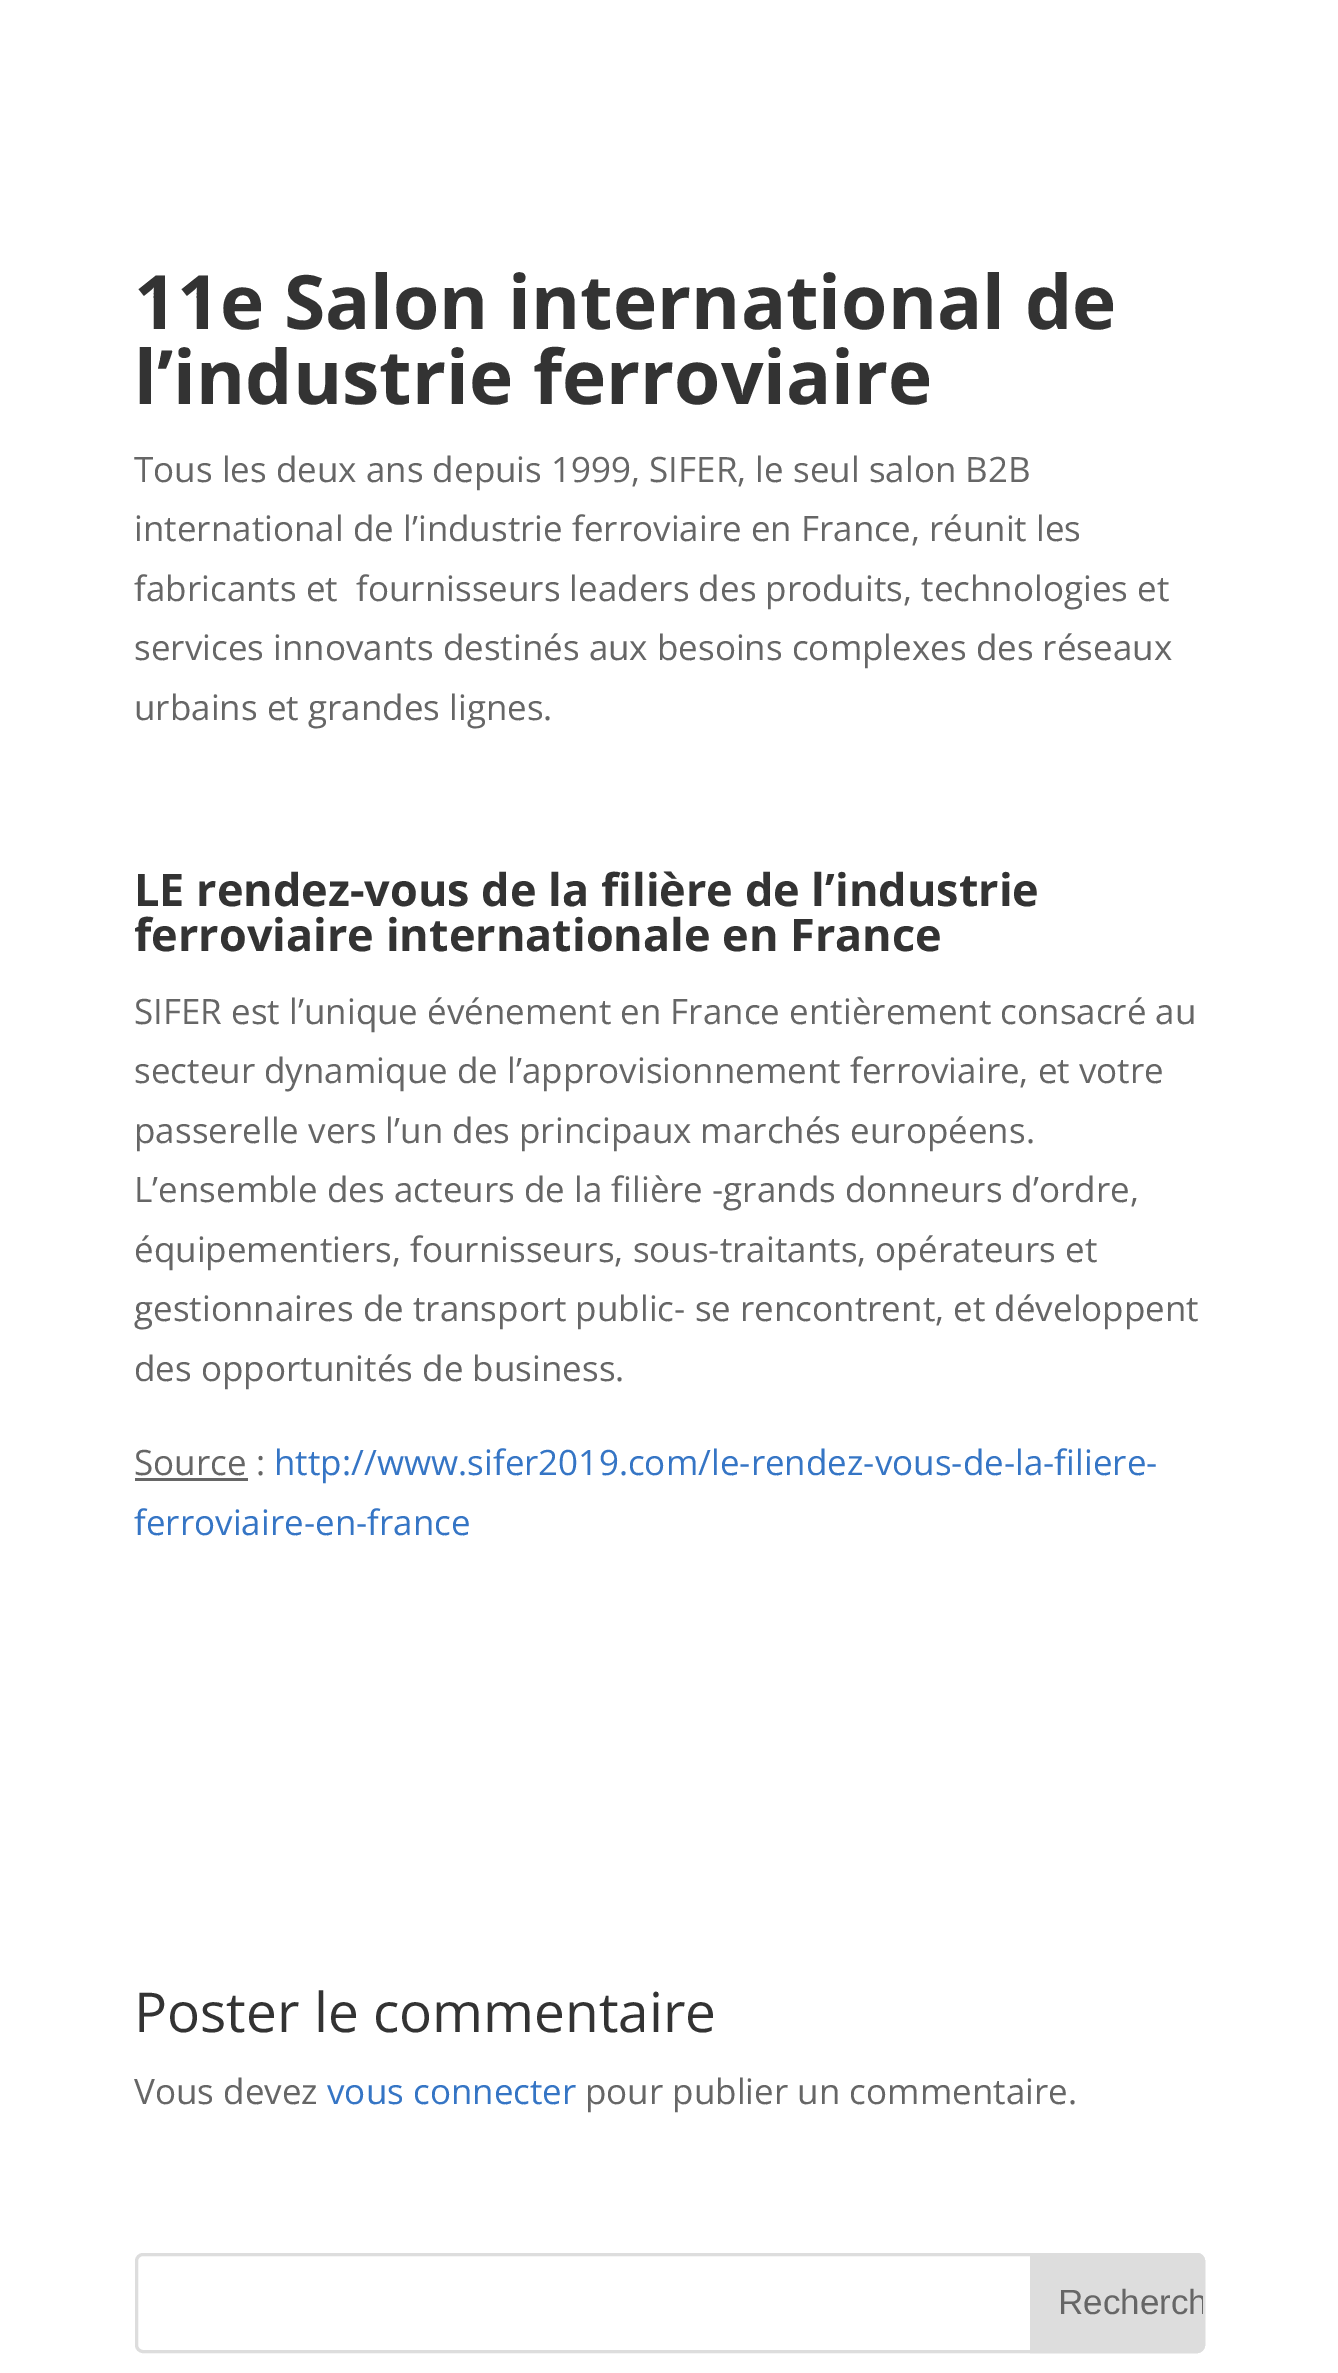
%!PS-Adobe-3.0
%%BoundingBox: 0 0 1338 2373
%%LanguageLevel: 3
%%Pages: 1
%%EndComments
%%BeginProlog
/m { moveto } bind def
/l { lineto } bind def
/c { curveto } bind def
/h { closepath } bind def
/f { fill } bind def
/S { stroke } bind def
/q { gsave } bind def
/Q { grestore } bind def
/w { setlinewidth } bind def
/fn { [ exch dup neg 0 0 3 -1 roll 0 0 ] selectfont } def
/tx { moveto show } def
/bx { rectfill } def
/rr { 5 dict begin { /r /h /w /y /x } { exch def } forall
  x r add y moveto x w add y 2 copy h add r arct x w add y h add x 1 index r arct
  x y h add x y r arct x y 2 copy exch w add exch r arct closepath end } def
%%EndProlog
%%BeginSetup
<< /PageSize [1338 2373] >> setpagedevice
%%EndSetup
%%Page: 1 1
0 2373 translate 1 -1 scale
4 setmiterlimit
1 setgray
0 0 1338 2373 bx
/OpenSans-Bold 75 fn
0.2 setgray
(11e Salon international de) 134 329 tx
(l’industrie ferroviaire) 134 404 tx
/OpenSans-Regular 35 fn
0.4 setgray
(Tous les deux ans depuis 1999, SIFER, le seul salon B2B) 134 482 tx
(international de l’industrie ferroviaire en France, réunit les) 134 541 tx
(fabricants et  fournisseurs leaders des produits, technologies et) 134 601 tx
(services innovants destinés aux besoins complexes des réseaux) 134 660 tx
(urbains et grandes lignes.) 134 720 tx
/OpenSans-Bold 45 fn
0.2 setgray
(LE rendez-vous de la filière de l’industrie) 134 906 tx
(ferroviaire internationale en France) 134 951 tx
/OpenSans-Regular 35 fn
0.4 setgray
(SIFER est l’unique événement en France entièrement consacré au) 134 1024 tx
(secteur dynamique de l’approvisionnement ferroviaire, et votre) 134 1083 tx
(passerelle vers l’un des principaux marchés européens.) 134 1143 tx
(L’ensemble des acteurs de la filière -grands donneurs d’ordre,) 134 1202 tx
(équipementiers, fournisseurs, sous-traitants, opérateurs et) 134 1262 tx
(gestionnaires de transport public- se rencontrent, et développent) 134 1321 tx
(des opportunités de business.) 134 1381 tx
(Source :) 134 1475 tx
135 1478 113 3 bx
0.208 0.459 0.773 setrgbcolor
(http://www.sifer2019.com/le-rendez-vous-de-la-filiere-) 274 1475 tx
(ferroviaire-en-france) 134 1535 tx
/OpenSans-Regular 55 fn
0.2 setgray
(Poster le commentaire) 134 2032 tx
/OpenSans-Regular 35 fn
0.4 setgray
(Vous devez) 134 2104 tx
0.208 0.459 0.773 setrgbcolor
(vous connecter) 327 2104 tx
0.4 setgray
(pour publier un commentaire.) 585 2104 tx
0.867 setgray
3 w
136.5 2254.5 1067 97 6.5 rr S
1031.5 2254.5 m 1197 2254.5 l 1200.5 2254.5 1203.5 2257.5 1203.5 2261 c 1203.5 2345 l 1203.5 2348.5 1200.5 2351.5 1197 2351.5 c 1031.5 2351.5 l h q f Q
S
q
1033 2255 m 1198 2255 l 1201 2255 1203 2257 1203 2260 c 1203 2345 l 1203 2348 1201 2350 1198 2350 c 1033 2350 l h clip newpath
/LiberationSans-Regular 35 fn
0.4 setgray
(Recherch) 1058 2314 tx
Q
showpage
%%EOF
